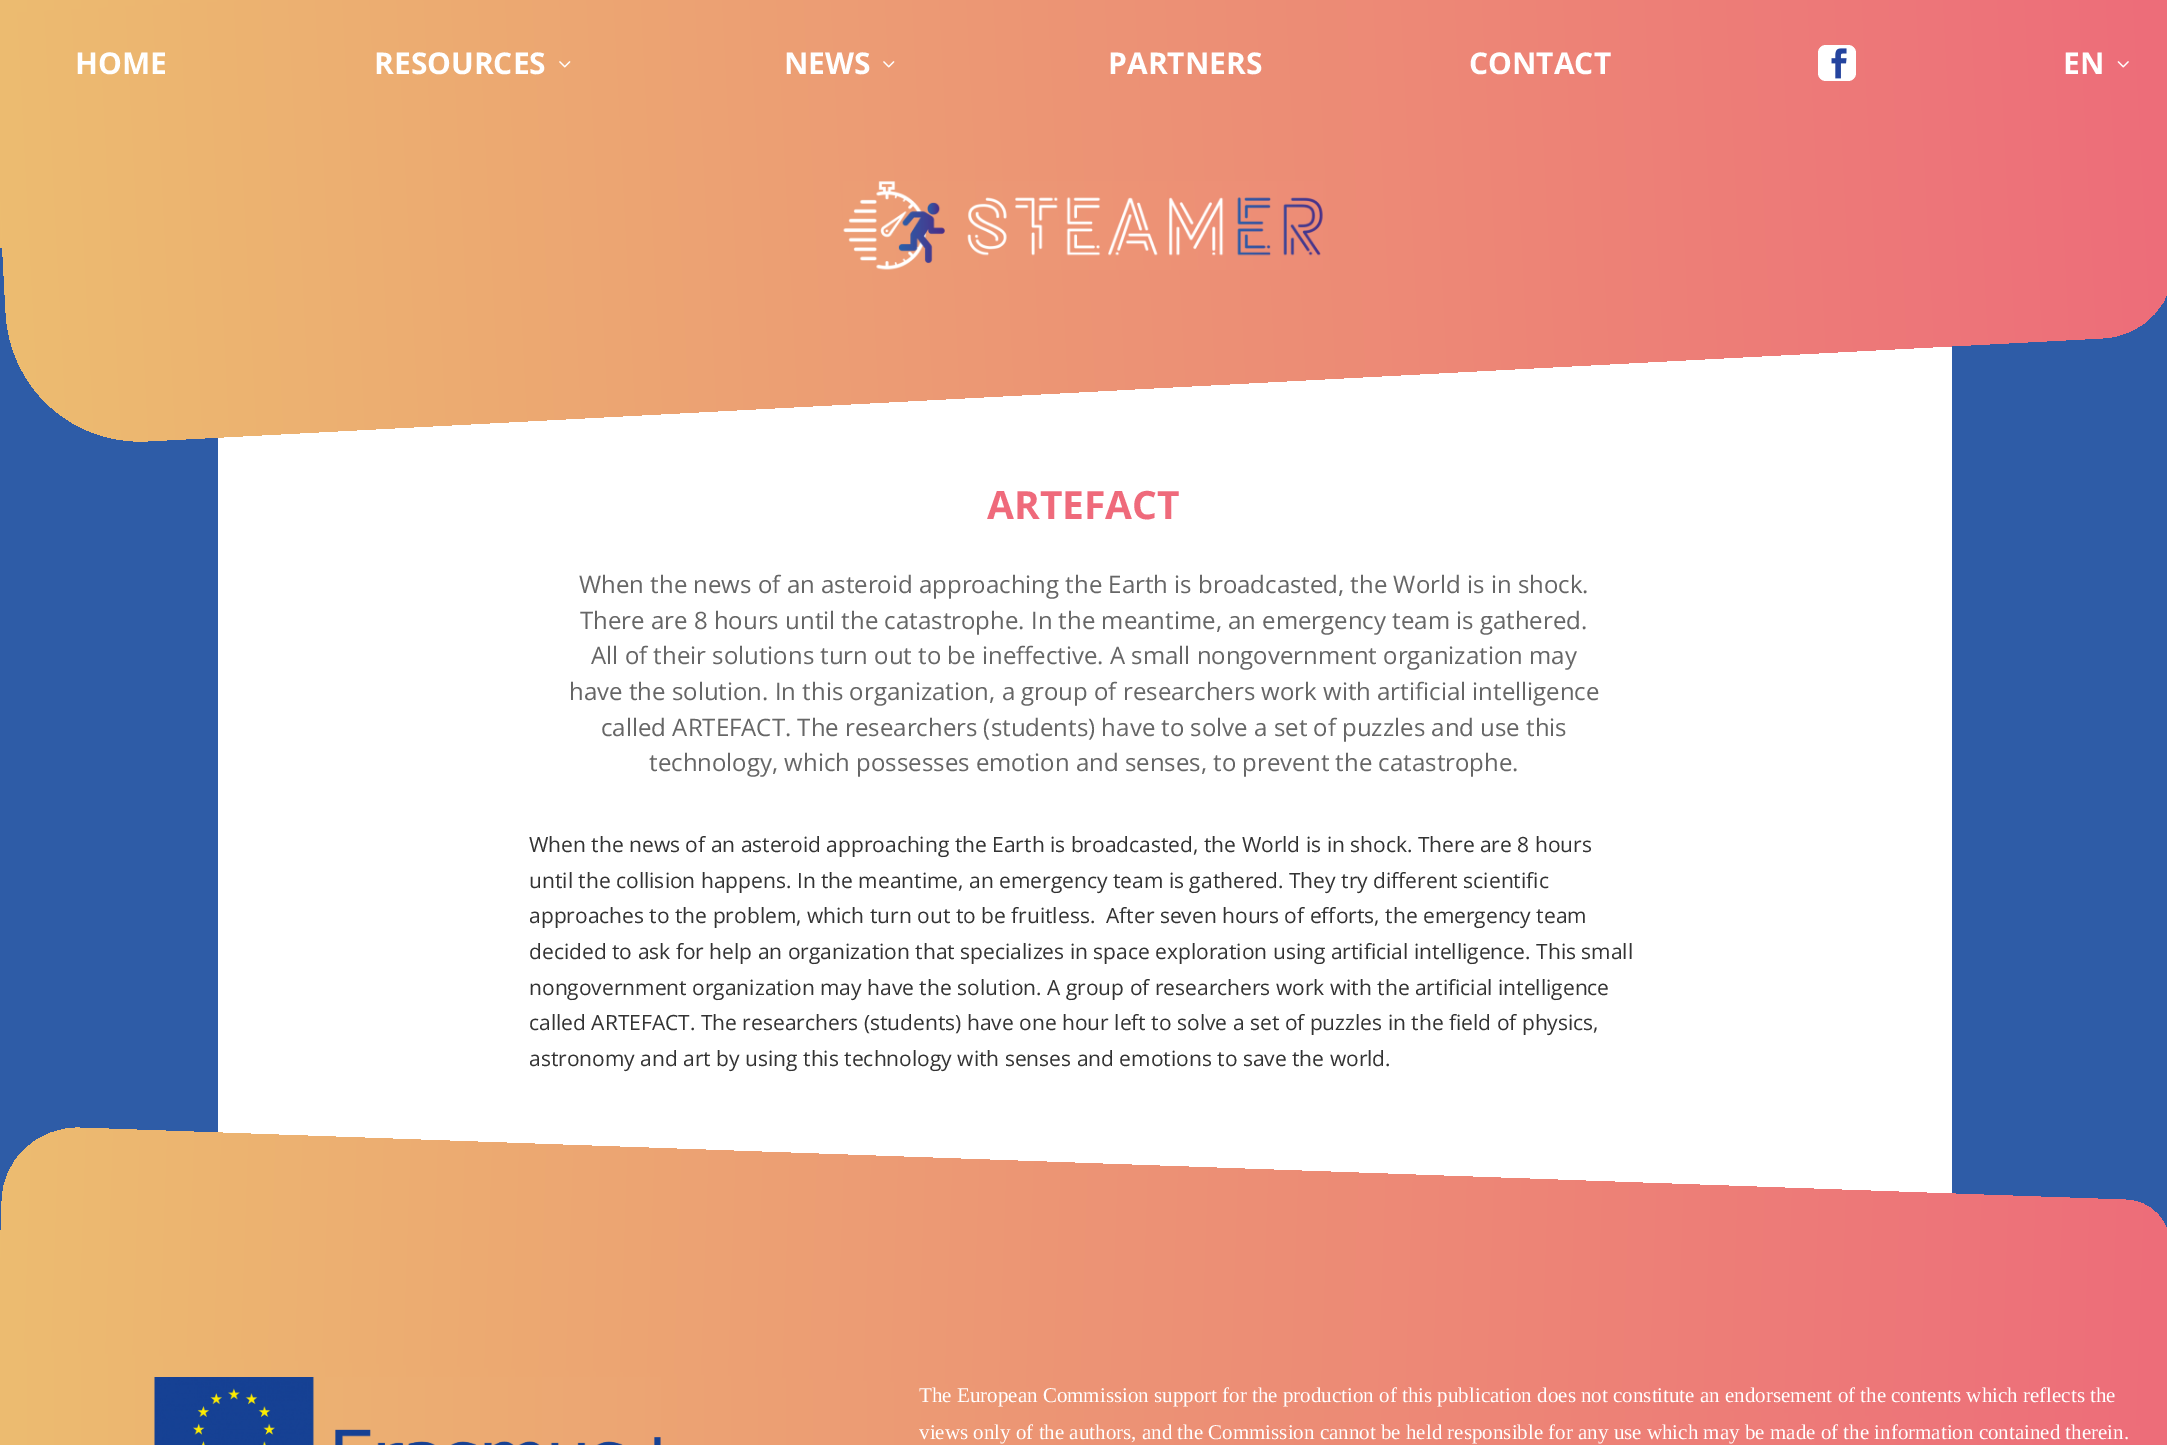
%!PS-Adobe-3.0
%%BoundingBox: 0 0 2167 1445
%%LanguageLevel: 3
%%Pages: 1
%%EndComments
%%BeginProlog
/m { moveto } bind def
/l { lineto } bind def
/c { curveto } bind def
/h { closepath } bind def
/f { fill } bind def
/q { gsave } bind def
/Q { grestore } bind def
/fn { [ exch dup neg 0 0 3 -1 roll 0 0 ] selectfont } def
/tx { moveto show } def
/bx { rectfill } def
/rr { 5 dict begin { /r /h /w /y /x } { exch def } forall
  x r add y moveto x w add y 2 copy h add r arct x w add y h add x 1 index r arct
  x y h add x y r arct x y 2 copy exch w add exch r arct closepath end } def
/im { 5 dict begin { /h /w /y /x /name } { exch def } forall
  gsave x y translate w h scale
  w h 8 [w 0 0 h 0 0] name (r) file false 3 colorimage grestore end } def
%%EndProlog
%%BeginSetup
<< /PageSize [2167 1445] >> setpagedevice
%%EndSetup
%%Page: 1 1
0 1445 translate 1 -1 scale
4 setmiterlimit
0.18 0.361 0.655 setrgbcolor
0 0 2167 1445 bx
q 0 0 m 2167 0 l 2167 248 l 0 248 l h clip newpath
<< /ShadingType 2 /ColorSpace /DeviceRGB /Coords [0 124 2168 124] /Extend [true true] /Function << /FunctionType 2 /Domain [0 1] /C0 [0.925 0.737 0.439] /C1 [0.929 0.427 0.478] /N 1 >> >> shfill Q
1 setgray
218 346 1734 848 bx
q -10 14 m 2155 -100 l 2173 260 l 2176 301 2144 336 2103 338 c 148 441 l 73 445 10 388 6 313 c h clip newpath
<< /ShadingType 2 /ColorSpace /DeviceRGB /Coords [1.5 231 2166 117] /Extend [true true] /Function << /FunctionType 2 /Domain [0 1] /C0 [0.925 0.737 0.439] /C1 [0.929 0.427 0.478] /N 1 >> >> shfill Q
/OpenSans-Bold 30 fn
(HOME) 75 74 tx
(RESOURCES) 374 74 tx
(image0.raw) 559 61 12 7 im
(NEWS) 784 74 tx
(image1.raw) 883 61 12 7 im
(PARTNERS) 1108 74 tx
(CONTACT) 1469 74 tx
1818 45 38 36 8 rr f
(image2.raw) 1831 48 16 31 im
(EN) 2063 74 tx
(image3.raw) 2117 61 12 7 im
(image4.raw) 843 181 480 89 im
/OpenSans-Bold 39 fn
0.937 0.416 0.482 setrgbcolor
(ARTEFACT) 987 519 tx
/OpenSans-Regular 24 fn
0.4 setgray
(When the news of an asteroid approaching the Earth is broadcasted, the World is in shock.) 579 593 tx
(There are 8 hours until the catastrophe. In the meantime, an emergency team is gathered.) 580 629 tx
(All of their solutions turn out to be ineffective. A small nongovernment organization may) 591 664 tx
(have the solution. In this organization, a group of researchers work with artificial intelligence) 569 700 tx
(called ARTEFACT. The researchers \(students\) have to solve a set of puzzles and use this) 601 736 tx
(technology, which possesses emotion and senses, to prevent the catastrophe.) 649 771 tx
/OpenSans-Regular 21 fn
0.2 setgray
(When the news of an asteroid approaching the Earth is broadcasted, the World is in shock. There are 8 hours) 529 852 tx
(until the collision happens. In the meantime, an emergency team is gathered. They try different scientific) 529 888 tx
(approaches to the problem, which turn out to be fruitless.) 529 923 tx
(After seven hours of efforts, the emergency team) 1106 923 tx
(decided to ask for help an organization that specializes in space exploration using artificial intelligence. This small) 529 959 tx
(nongovernment organization may have the solution. A group of researchers work with the artificial intelligence) 529 995 tx
(called ARTEFACT. The researchers \(students\) have one hour left to solve a set of puzzles in the field of physics,) 529 1030 tx
(astronomy and art by using this technology with senses and emotions to save the world.) 529 1066 tx
q 0 1239 m 2167 1239 l 2167 1445 l 0 1445 l h clip newpath
<< /ShadingType 2 /ColorSpace /DeviceRGB /Coords [0 1397 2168 1397] /Extend [true true] /Function << /FunctionType 2 /Domain [0 1] /C0 [0.925 0.737 0.439] /C1 [0.929 0.427 0.478] /N 1 >> >> shfill Q
q 80 1128 m 2126 1200 l 2151 1201 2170 1221 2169 1246 c 2163 1426 l -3 1350 l 2 1201 l 3 1159 38 1127 80 1128 c h clip newpath
<< /ShadingType 2 /ColorSpace /DeviceRGB /Coords [0.7 1238 2167 1314] /Extend [true true] /Function << /FunctionType 2 /Domain [0 1] /C0 [0.925 0.737 0.439] /C1 [0.929 0.427 0.478] /N 1 >> >> shfill Q
(image5.raw) 154 1377 507 68 im
/LiberationSerif-Regular 21 fn
1 setgray
(The European Commission support for the production of this publication does not constitute an endorsement of the contents which reflects the) 919 1402 tx
(views only of the authors, and the Commission cannot be held responsible for any use which may be made of the information contained therein.) 919 1439 tx
showpage
%%EOF
